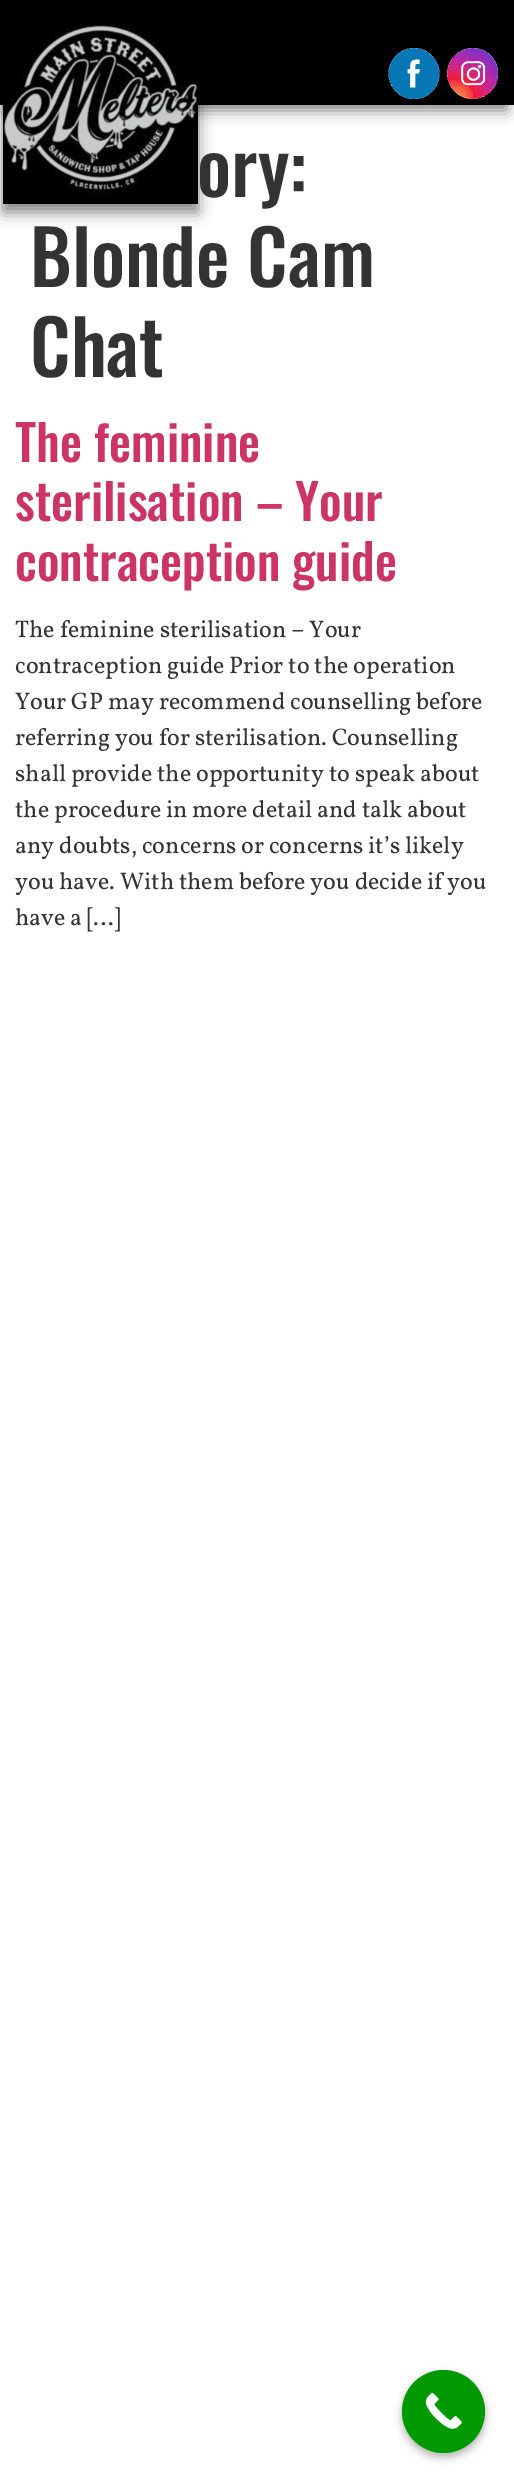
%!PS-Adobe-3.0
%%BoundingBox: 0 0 514 2475
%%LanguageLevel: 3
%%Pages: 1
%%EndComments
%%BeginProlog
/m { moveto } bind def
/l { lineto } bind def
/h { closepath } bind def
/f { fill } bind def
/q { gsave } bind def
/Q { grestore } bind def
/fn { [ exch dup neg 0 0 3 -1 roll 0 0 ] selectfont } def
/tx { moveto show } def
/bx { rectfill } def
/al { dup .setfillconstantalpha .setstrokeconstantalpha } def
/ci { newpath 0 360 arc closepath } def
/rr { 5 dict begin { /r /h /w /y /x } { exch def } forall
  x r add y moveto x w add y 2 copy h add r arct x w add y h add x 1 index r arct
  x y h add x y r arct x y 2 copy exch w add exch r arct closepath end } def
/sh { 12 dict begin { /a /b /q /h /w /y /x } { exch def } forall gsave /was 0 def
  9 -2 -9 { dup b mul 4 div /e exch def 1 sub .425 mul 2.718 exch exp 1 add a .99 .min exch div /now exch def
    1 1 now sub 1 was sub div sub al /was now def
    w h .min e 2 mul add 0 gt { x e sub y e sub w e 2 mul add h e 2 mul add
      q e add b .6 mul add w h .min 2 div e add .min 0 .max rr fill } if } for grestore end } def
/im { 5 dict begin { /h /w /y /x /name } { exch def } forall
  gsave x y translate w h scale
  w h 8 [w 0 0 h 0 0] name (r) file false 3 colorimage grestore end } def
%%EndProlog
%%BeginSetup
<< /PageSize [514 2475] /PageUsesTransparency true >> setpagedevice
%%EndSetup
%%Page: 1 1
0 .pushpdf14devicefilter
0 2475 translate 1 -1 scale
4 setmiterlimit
1 setgray
0 0 514 2475 bx
0 setgray
8 20 499 90 0 7.5 0.5 sh
0 0 514 105 bx
q
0 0 m 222 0 l 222 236 l 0 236 l h 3 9 m 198 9 l 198 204 l 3 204 l h eoclip newpath
3 17 195 195 0 7.5 0.5 sh
Q
(image0.raw) 3 22 195 182 im
(image1.raw) 388 48 52 51 im
(image2.raw) 447 48 51 51 im
/Oswald-Medium 75 fn
0.2 setgray
(ory:) 197 197 tx
(Blonde Cam) 30 287 tx
(Chat) 30 377 tx
/Oswald-Medium 49.5 fn
0.8 0.2 0.4 setrgbcolor
(The feminine) 15 462 tx
(sterilisation – Your) 15 521 tx
(contraception guide) 15 581 tx
/Vollkorn-Regular 24 fn
0.2 setgray
(The feminine sterilisation – Your) 15 637 tx
(contraception guide Prior to the operation) 15 673 tx
(Your GP may recommend counselling before) 15 709 tx
(referring you for sterilisation. Counselling) 15 745 tx
(shall provide the opportunity to speak about) 15 781 tx
(the procedure in more detail and talk about) 15 817 tx
(any doubts, concerns or concerns it’s likely) 15 853 tx
(you have. With them before you decide if you) 15 889 tx
(have a […]) 15 925 tx
0 setgray
402 2375 83 82 41 4.5 0.3 sh
0 0.6 0 setrgbcolor
443.5 2411.5 41.5 ci f
(image3.raw) 425 2392 37 37 im
.poppdf14devicefilter showpage
%%EOF
